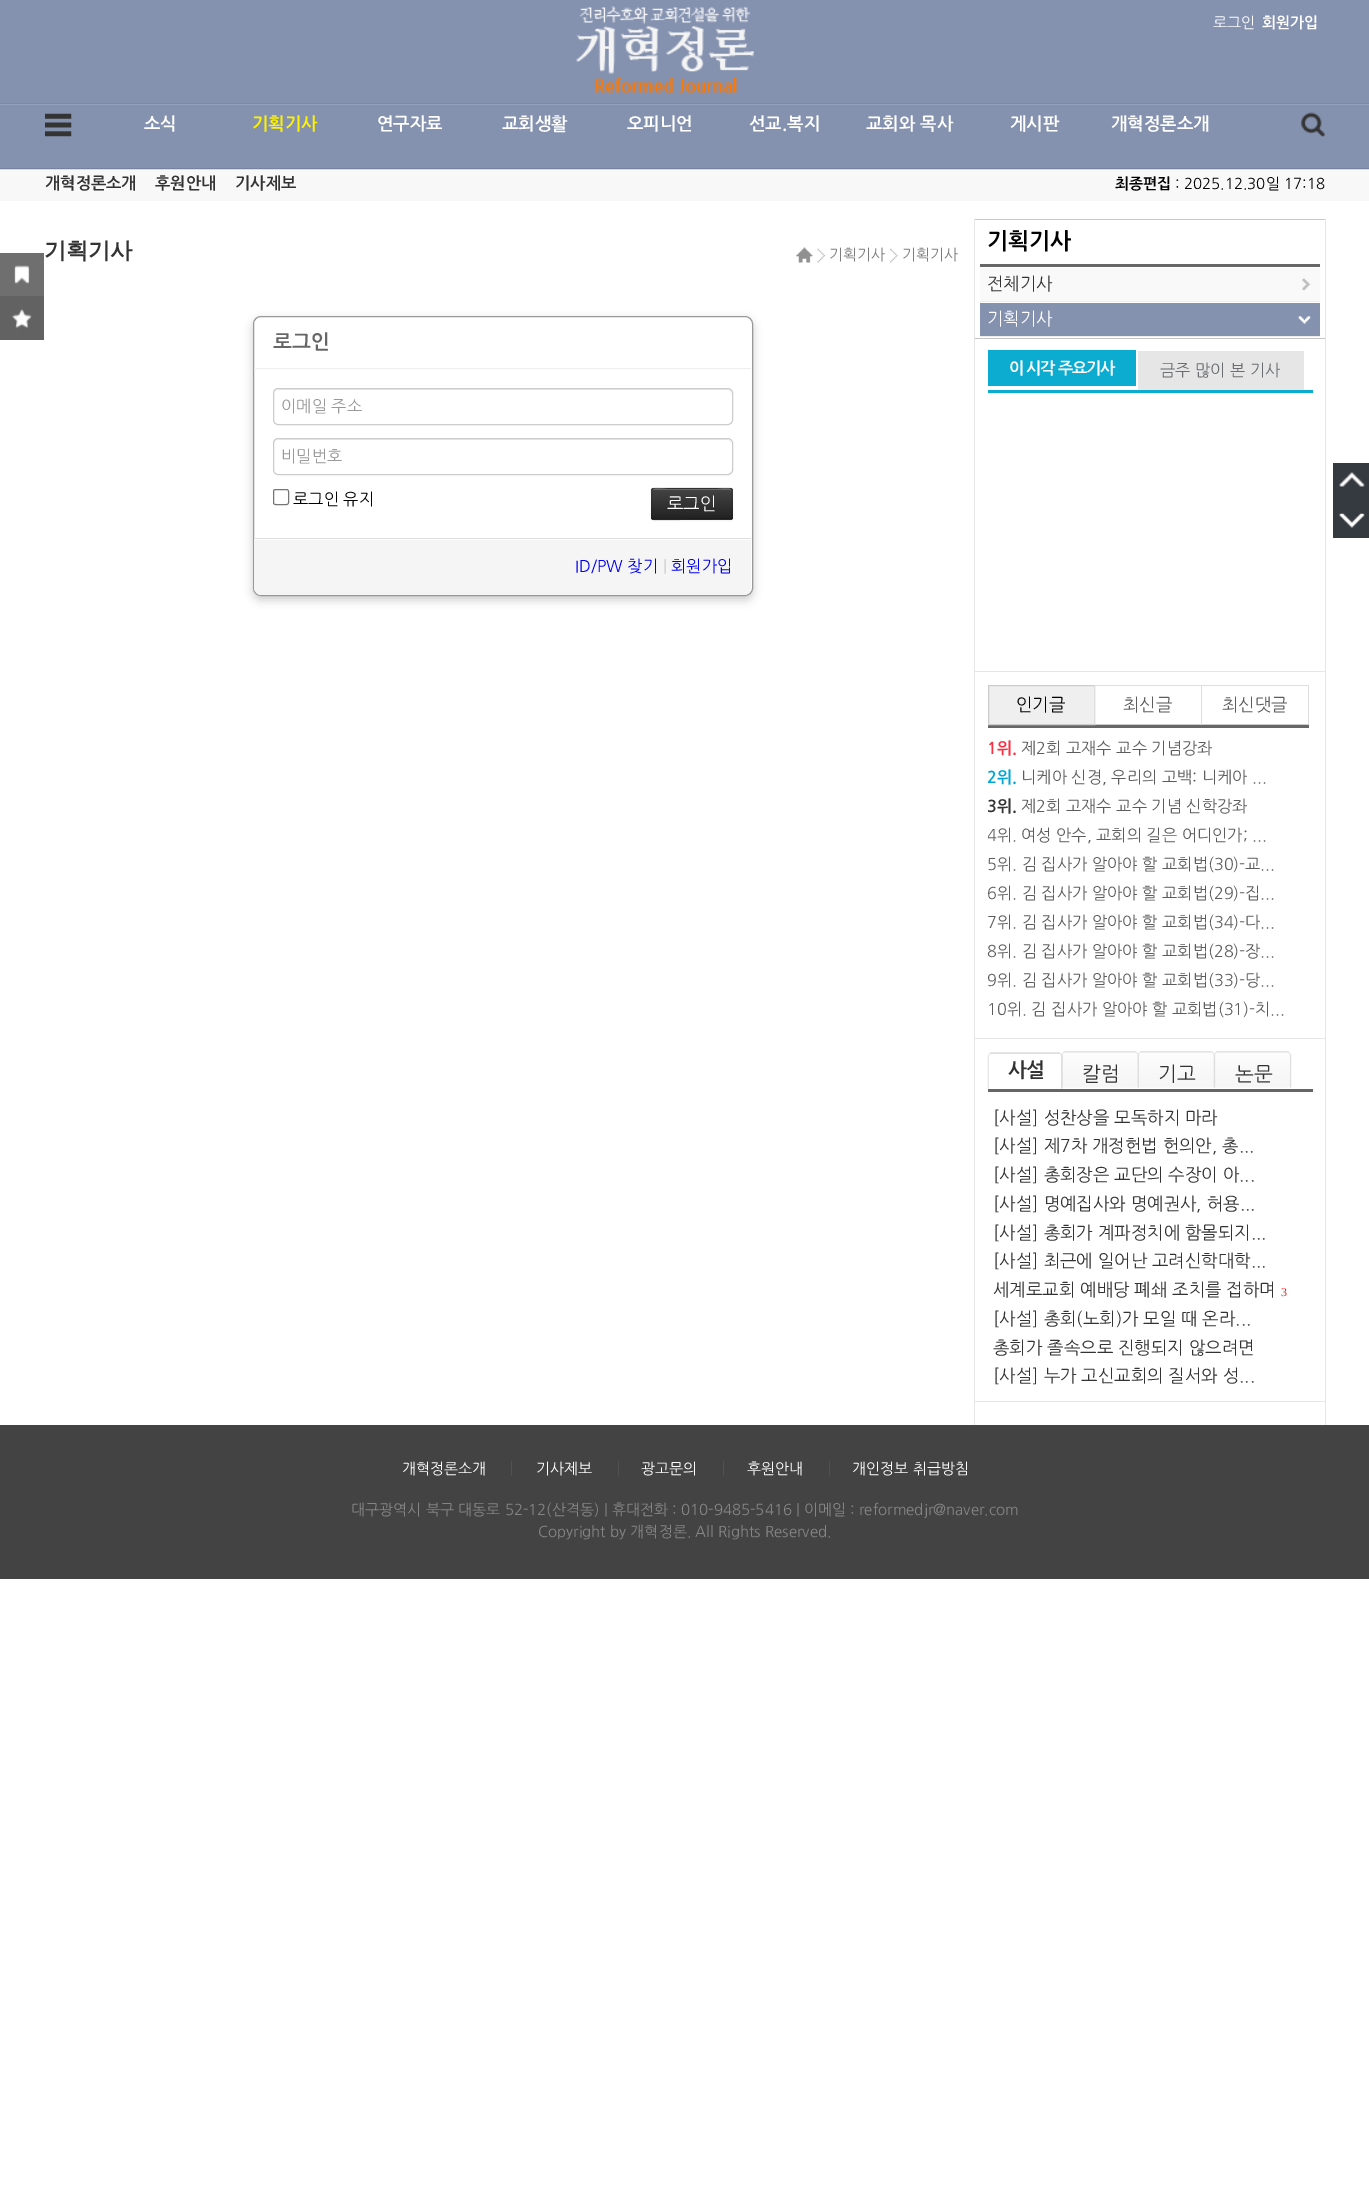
%!PS-Adobe-3.0
%%BoundingBox: 0 0 1369 2194
%%LanguageLevel: 3
%%Pages: 1
%%EndComments
%%BeginProlog
/m { moveto } bind def
/l { lineto } bind def
/c { curveto } bind def
/h { closepath } bind def
/f { fill } bind def
/S { stroke } bind def
/q { gsave } bind def
/Q { grestore } bind def
/w { setlinewidth } bind def
/fn { [ exch dup neg 0 0 3 -1 roll 0 0 ] selectfont } def
/tx { moveto show } def
/bx { rectfill } def
/al { dup .setfillconstantalpha .setstrokeconstantalpha } def
/rr { 5 dict begin { /r /h /w /y /x } { exch def } forall
  x r add y moveto x w add y 2 copy h add r arct x w add y h add x 1 index r arct
  x y h add x y r arct x y 2 copy exch w add exch r arct closepath end } def
/sh { 12 dict begin { /a /b /q /h /w /y /x } { exch def } forall gsave /was 0 def
  9 -2 -9 { dup b mul 4 div /e exch def 1 sub .425 mul 2.718 exch exp 1 add a .99 .min exch div /now exch def
    1 1 now sub 1 was sub div sub al /was now def
    w h .min e 2 mul add 0 gt { x e sub y e sub w e 2 mul add h e 2 mul add
      q e add b .6 mul add w h .min 2 div e add .min 0 .max rr fill } if } for grestore end } def
/im { 5 dict begin { /h /w /y /x /name } { exch def } forall
  gsave x y translate w h scale
  w h 8 [w 0 0 h 0 0] name (r) file false 3 colorimage grestore end } def
%%EndProlog
%%BeginSetup
<< /PageSize [1369 2194] /PageUsesTransparency true >> setpagedevice
%%EndSetup
%%Page: 1 1
0 .pushpdf14devicefilter
0 2194 translate 1 -1 scale
4 setmiterlimit
1 setgray
0 0 1369 2194 bx
0.518 0.569 0.686 setrgbcolor
0 0 1369 168 bx
(image0.raw) 576 6 178 87 im
/NanumGothic-Regular 15 fn
1 setgray
(로그인) 1213 28 tx
/NanumGothic-Bold 15 fn
(회원가입) 1262 28 tx
(image1.raw) 45 113 27 24 im
/NanumGothic-Bold 17.5 fn
(소식) 144 130 tx
1 0.949 0 setrgbcolor
(기획기사) 252 130 tx
1 setgray
(연구자료) 377 130 tx
(교회생활) 502 130 tx
(오피니언) 627 130 tx
(선교.복지) 749 130 tx
(교회와 목사) 866 130 tx
(게시판) 1010 130 tx
(개혁정론소개) 1111 130 tx
(image2.raw) 1301 112 24 25 im
0.49 0.541 0.651 setrgbcolor
0 103 1369 1 bx
0.588 0.635 0.733 setrgbcolor
0 104 1369 1 bx
0.467 0.514 0.62 setrgbcolor
0 168 1369 1 bx
0.973 setgray
0 170 1369 31 bx
0.859 setgray
0 169 1369 1 bx
/NanumGothic-Bold 16.25 fn
0.2 setgray
(개혁정론소개) 45 189 tx
(후원안내) 155 189 tx
(기사제보) 235 189 tx
/NanumGothic-Bold 15 fn
0 setgray
(최종편집) 1115 189 tx
/NanumGothic-Regular 15 fn
(: 2025.12.30일 17:18) 1175 189 tx
0.435 setgray
0 253 44 43 bx
(image3.raw) 14 265 16 19 im
0.384 setgray
0 296 44 44 bx
(image4.raw) 12 309 20 20 im
0.902 setgray
1325 219 1 1206 bx
/WenQuanYiZenHei-Bold 22.5 fn
0.2 setgray
44 258 m -0.5 0 (기획기사) ashow
(image5.raw) 796 247 17 16 im
(image6.raw) 817 248 9 15 im
/NanumGothic-Regular 15 fn
0.486 setgray
(기획기사) 829 260 tx
(image7.raw) 890 248 8 15 im
(기획기사) 902 260 tx
0.8 setgray
253 320 500 280 8 4.5 1 sh
1 setgray
253.5 316.5 499 279 7.5 rr q f Q
0.6 setgray
S
0.933 setgray
254 368 497 1 bx
/NanumGothic-Bold 20 fn
0.4 setgray
(로그인) 273 349 tx
0.925 setgray
278 390 m 728 390 l 730 390 731 392 731 394 c 731 391 730 389 727 389 c 278 389 l 276 390 l 275 391 l 274 394 l 274 392 275 390 278 390 c h f
0.8 setgray
273.5 388.5 459 36 4.5 rr S
/NanumGothic-Regular 16.25 fn
0.6 setgray
(이메일 주소) 281 412 tx
0.925 setgray
278 440 m 728 440 l 730 440 731 442 731 444 c 731 441 730 439 727 439 c 278 439 l 276 440 l 275 441 l 274 444 l 274 442 275 440 278 440 c h f
0.8 setgray
273.5 438.5 459 36 4.5 rr S
0.6 setgray
(비밀번호) 281 462 tx
0.463 setgray
273.5 489.5 15 15 2 rr S
0 setgray
(로그인 유지) 293 505 tx
651 489 82 32 2.5 1 0.05 sh
0.212 setgray
651 488 82 32 2.5 rr f
q
651 488 82 32 2.5 rr clip newpath
q 651 489 m 733 489 l 733 519 l 651 519 l h clip newpath
<< /ShadingType 2 /ColorSpace /DeviceRGB /Coords [692 489 692 519] /Extend [true true] /Function << /FunctionType 2 /Domain [0 1] /C0 [0.267 0.267 0.267] /C1 [0.133 0.133 0.133] /N 1 >> >> shfill Q
Q
0.2 al
1 setgray
654 490 m 730 490 l 731 491 l 731 485 720 489 717 489 c 667 489 l 666 489 653 486 653 490 c h f
0.25 al
0 setgray
1.2 w
731.5 519 m 666.5 519.5 l 654 519.5 l 652.5 519 l S
0.1 al
652.5 519 m 651 517.5 652 506 652 504 c 652 485 648 488 666.5 488 c 717.5 488 l 735.5 488 732 485 732 504 c 732 506 733 517.5 731.5 519 c S
/NanumGothic-Regular 17.5 fn
1 al
1 setgray
(로그인) 667 510 tx
0.961 setgray
254 538 m 751 538 l 751 587 l 751 591.5 747.5 595 743 595 c 262 595 l 257.5 595 254 591.5 254 587 c h f
1 setgray
254 539 497 1 bx
0.867 setgray
254 538 497 1 bx
/NanumGothic-Regular 16.25 fn
0 0 0.933 setrgbcolor
(ID/PW 찾기) 575 572 tx
0.8 setgray
(|) 663 572 tx
0 0 0.933 setrgbcolor
(회원가입) 671 572 tx
0.902 setgray
974 219 1 1206 bx
0.788 setgray
975 219 350 1 bx
0.773 setgray
975 338 350 1 bx
0.404 setgray
980 264 340 3 bx
/NanumGothic-Bold 22.5 fn
0 setgray
(기획기사) 987 249 tx
0.929 setgray
980 301 340 1 bx
0.976 setgray
980 268 340 33 bx
(image8.raw) 1302 278 9 13 im
/NanumGothic-Regular 17.5 fn
0.2 setgray
(전체기사) 987 290 tx
0.929 setgray
980 336 340 1 bx
0.518 0.569 0.686 setrgbcolor
980 303 340 33 bx
(image9.raw) 1298 316 13 8 im
1 setgray
(기획기사) 987 325 tx
0.047 0.671 0.816 setrgbcolor
988 390 325 3 bx
988 350 148 36 bx
/NanumGothic-Bold 16.25 fn
1 setgray
1009 374 m -1.25 0 (이 시각 주요기사) ashow
0.902 setgray
1138 351 166 39 bx
/NanumGothic-Regular 16.25 fn
0.42 0.427 0.439 setrgbcolor
(금주 많이 본 기사) 1160 376 tx
0.902 setgray
975 671 350 1 bx
0.404 setgray
988 725 321 3 bx
0.937 setgray
988.5 685.5 m 1094.5 685.5 l 1094.5 724.5 l 988.5 724.5 l h q f Q
0.8 setgray
1 w
S
/NanumGothic-Regular 17.5 fn
0 setgray
(인기글) 1016 711 tx
0.871 setgray
1094 685 215 1 bx
0.8 setgray
1094 724 109 1 bx
0.871 setgray
1094 685 1 40 bx
0.361 setgray
(최신글) 1123 711 tx
0.871 setgray
1308 685 1 40 bx
0.8 setgray
1201 724 108 1 bx
0.871 setgray
1201 685 1 40 bx
0.361 setgray
(최신댓글) 1222 711 tx
/NanumGothic-Bold 16.25 fn
0.961 0.192 0.267 setrgbcolor
(1위.) 987 754 tx
/NanumGothic-Regular 16.25 fn
0.361 setgray
(제2회 고재수 교수 기념강좌) 1021 754 tx
/NanumGothic-Bold 16.25 fn
0 0.651 0.831 setrgbcolor
(2위.) 987 783 tx
/NanumGothic-Regular 16.25 fn
0.361 setgray
(니케아 신경, 우리의 고백: 니케아 ...) 1021 783 tx
/NanumGothic-Bold 16.25 fn
0.2 setgray
(3위.) 987 812 tx
/NanumGothic-Regular 16.25 fn
0.361 setgray
(제2회 고재수 교수 기념 신학강좌) 1021 812 tx
q
988 685 325 343 rectclip
(4위.) 987 841 tx
Q
(여성 안수, 교회의 길은 어디인가; ...) 1021 841 tx
(5위. 김 집사가 알아야 할 교회법\(30\)-교...) 987 870 tx
(6위. 김 집사가 알아야 할 교회법\(29\)-집...) 987 899 tx
(7위. 김 집사가 알아야 할 교회법\(34\)-다...) 987 928 tx
(8위. 김 집사가 알아야 할 교회법\(28\)-장...) 987 957 tx
(9위. 김 집사가 알아야 할 교회법\(33\)-당...) 987 986 tx
(10위. 김 집사가 알아야 할 교회법\(31\)-치...) 987 1015 tx
0.902 setgray
975 1038 350 1 bx
0.4 setgray
988 1089 325 3 bx
(image10.raw) 987 1052 73 37 im
(image12.raw) 1061 1051 76 37 im
(image11.raw) 990 1052 73 37 im
/NanumGothic-Bold 20 fn
0.2 setgray
1008 1077 m -1.25 0 (사설) ashow
(image14.raw) 1137 1051 76 37 im
(image13.raw) 1063 1051 76 37 im
/NanumGothic-Regular 20 fn
(칼럼) 1082 1081 tx
(image16.raw) 1213 1051 76 37 im
(image15.raw) 1140 1051 75 37 im
(기고) 1158 1081 tx
(image17.raw) 1216 1051 76 37 im
(논문) 1235 1081 tx
/NanumGothic-Regular 17.5 fn
([사설] 성찬상을 모독하지 마라) 993 1124 tx
([사설] 제7차 개정헌법 헌의안, 총...) 993 1152 tx
([사설] 총회장은 교단의 수장이 아...) 993 1181 tx
([사설] 명예집사와 명예권사, 허용...) 993 1210 tx
([사설] 총회가 계파정치에 함몰되지...) 993 1239 tx
([사설] 최근에 일어난 고려신학대학...) 993 1267 tx
(세계로교회 예배당 폐쇄 조치를 접하며) 993 1296 tx
/LiberationSerif-Regular 12 fn
1 0.102 0.102 setrgbcolor
(3) 1281 1296 tx
/NanumGothic-Regular 17.5 fn
0.2 setgray
([사설] 총회\(노회\)가 모일 때 온라...) 993 1325 tx
(총회가 졸속으로 진행되지 않으려면) 993 1354 tx
([사설] 누가 고신교회의 질서와 성...) 993 1382 tx
0.902 setgray
975 1401 350 1 bx
0.208 0.224 0.251 setrgbcolor
1333 463 36 75 bx
(image18.raw) 1339 472 26 15 im
(image19.raw) 1339 513 26 15 im
0.263 setgray
0 1425 1369 154 bx
/NanumGothic-Regular 15 fn
1 setgray
(개혁정론소개) 402 1474 tx
(기사제보) 536 1474 tx
0.318 setgray
511 1461 1 15 bx
1 setgray
(광고문의) 641 1474 tx
0.318 setgray
618 1461 1 15 bx
1 setgray
(후원안내) 747 1474 tx
0.318 setgray
723 1461 1 15 bx
1 setgray
(개인정보 취급방침) 852 1474 tx
0.318 setgray
829 1461 1 15 bx
0.525 0.522 0.522 setrgbcolor
(대구광역시 북구 대동로 52-12\(산격동\) | 휴대전화 : 010-9485-5416 | 이메일 : reformedjr@naver.com) 351 1515 tx
(Copyright by 개혁정론. All Rights Reserved.) 538 1537 tx
.poppdf14devicefilter showpage
%%EOF
